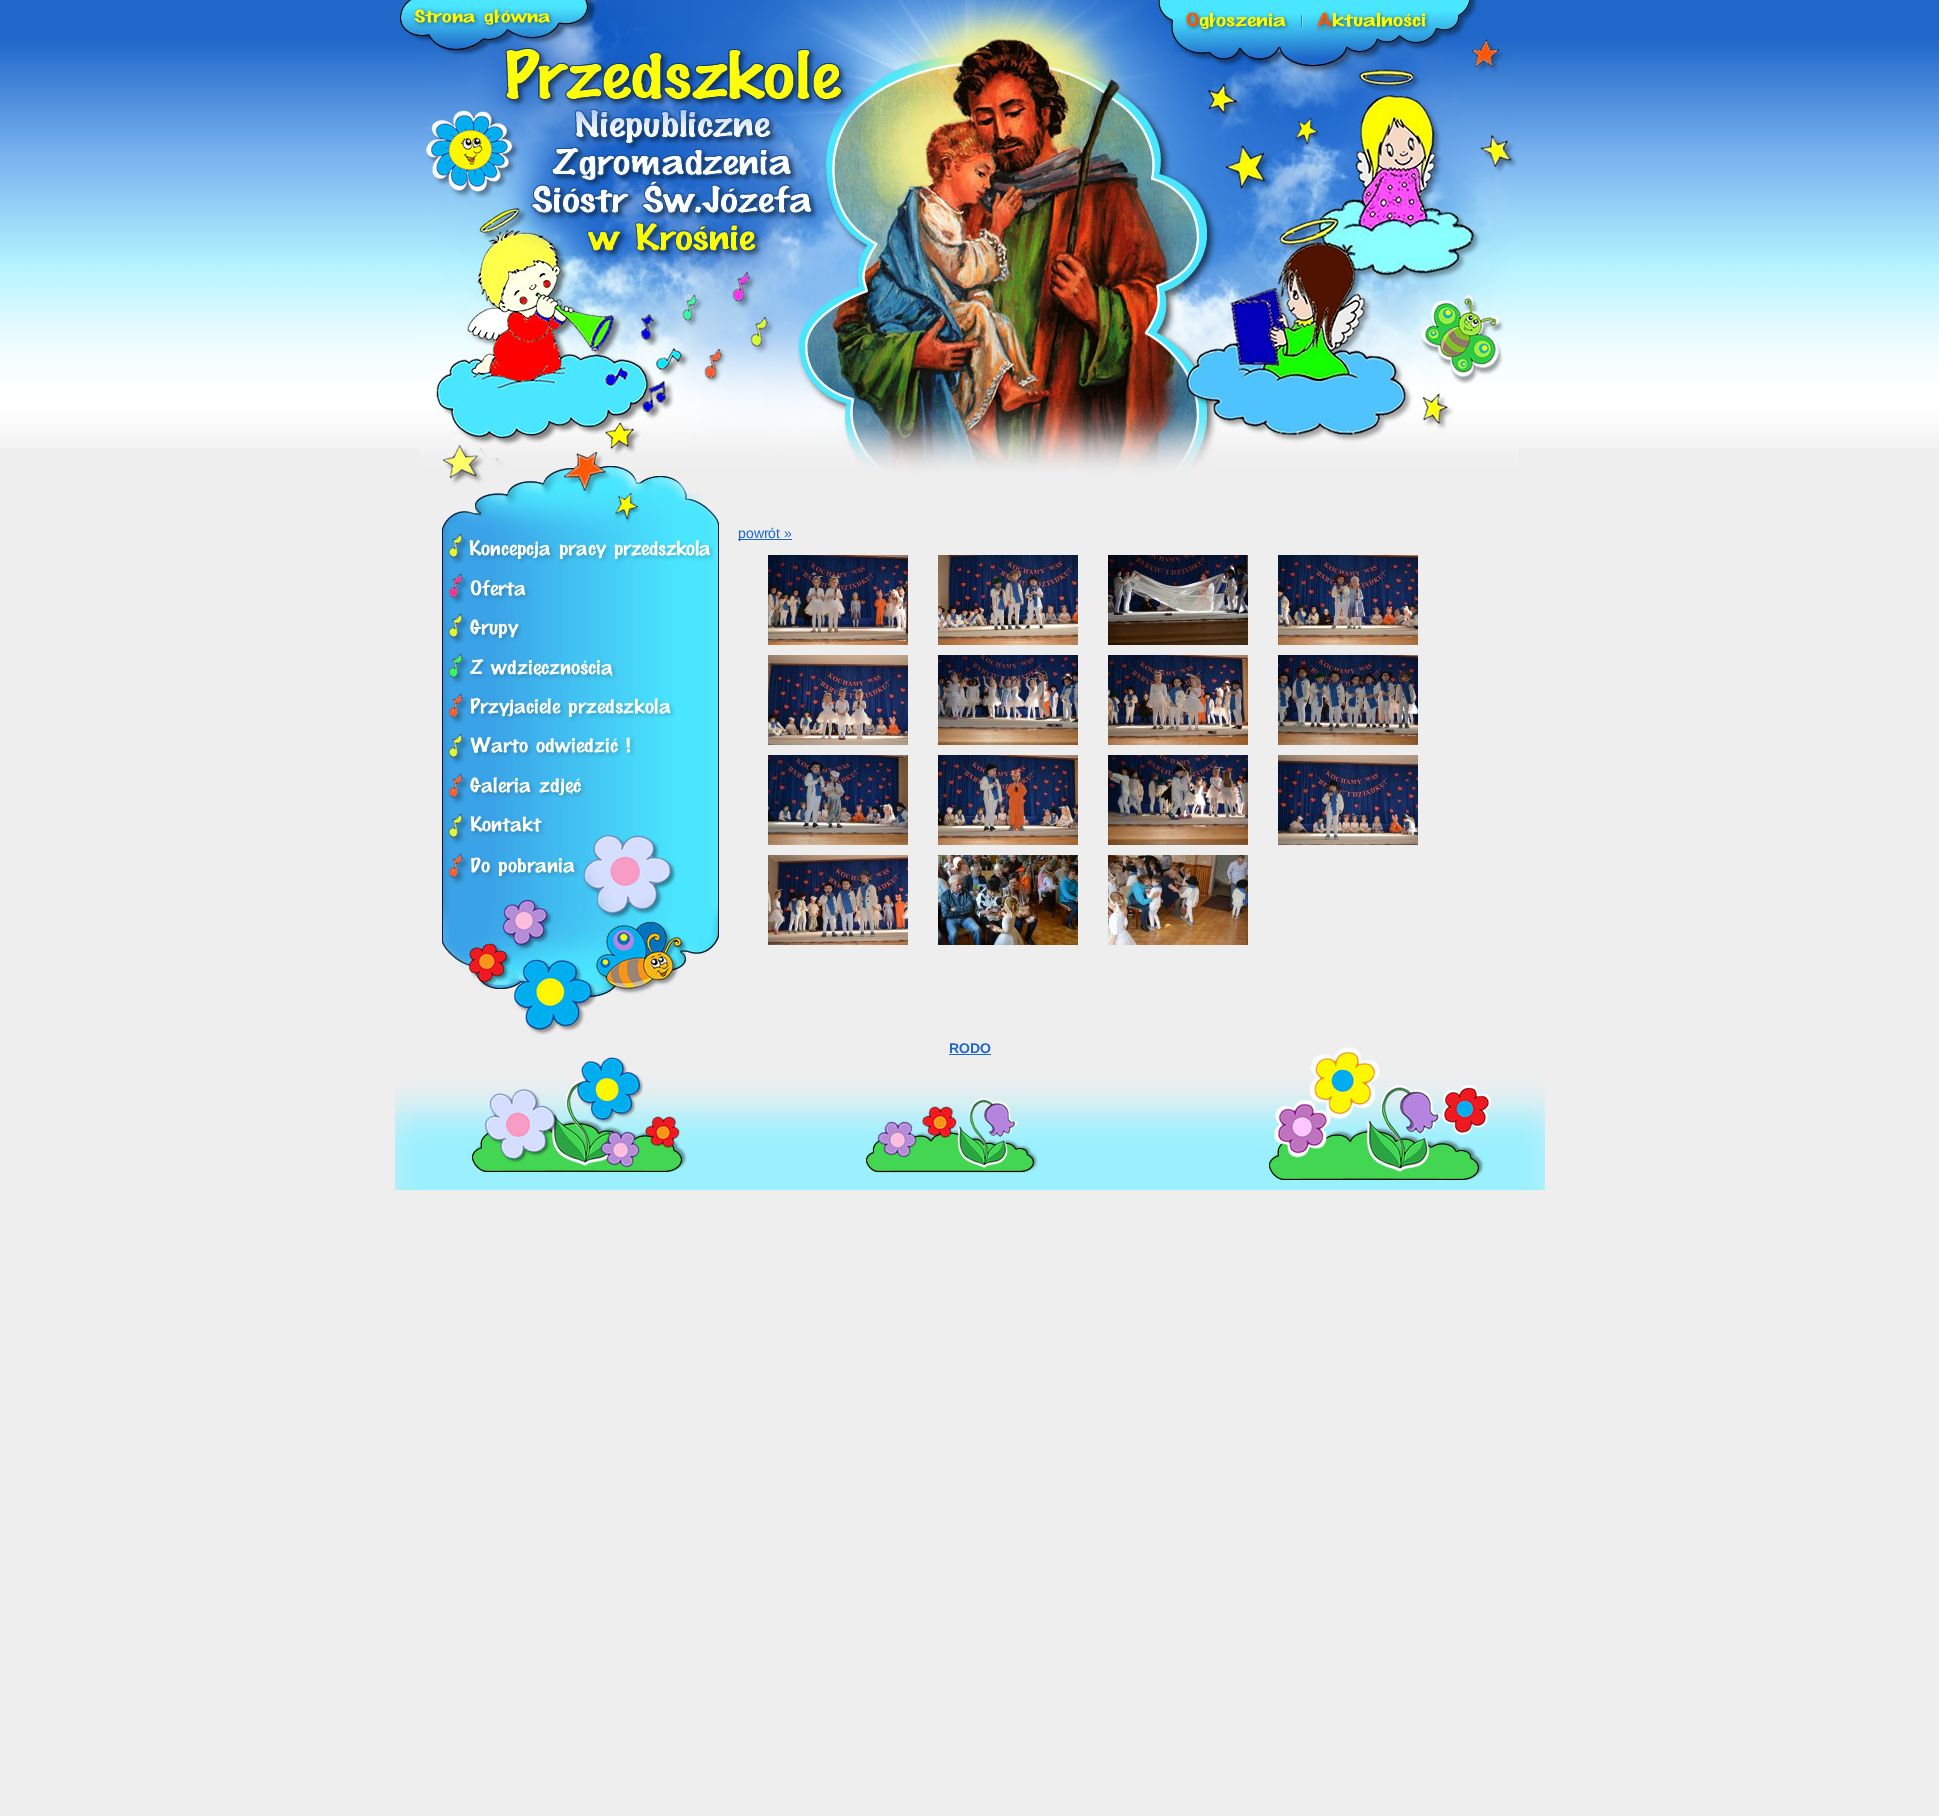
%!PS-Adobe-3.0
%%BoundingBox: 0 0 1939 1816
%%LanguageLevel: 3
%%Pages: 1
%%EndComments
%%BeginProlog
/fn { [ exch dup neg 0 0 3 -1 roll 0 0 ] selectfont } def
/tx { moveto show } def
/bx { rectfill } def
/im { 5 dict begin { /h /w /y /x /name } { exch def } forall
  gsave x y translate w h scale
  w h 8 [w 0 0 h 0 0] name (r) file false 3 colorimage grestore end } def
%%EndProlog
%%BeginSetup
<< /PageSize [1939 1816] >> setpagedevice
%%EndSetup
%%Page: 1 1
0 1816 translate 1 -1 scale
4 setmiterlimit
0.933 setgray
0 0 1939 1816 bx
(image0.raw) 0 0 1939 448 im
(image1.raw) 395 0 214 52 im
(image2.raw) 609 0 565 52 im
(image3.raw) 1174 0 129 52 im
(image4.raw) 1303 0 145 52 im
(image5.raw) 1448 0 56 52 im
(image6.raw) 419 52 1099 456 im
(image7.raw) 435 508 287 59 im
(image8.raw) 442 567 277 40 im
(image9.raw) 442 607 277 39 im
(image10.raw) 442 646 277 39 im
(image11.raw) 442 685 277 41 im
(image12.raw) 442 726 277 40 im
(image13.raw) 442 766 277 42 im
(image14.raw) 442 808 277 38 im
(image15.raw) 442 846 277 42 im
(image16.raw) 437 888 285 147 im
0.122 0.404 0.788 setrgbcolor
738 539 54 1 bx
/LiberationSans-Regular 14 fn
(powrót ») 738 538 tx
(image17.raw) 768 555 140 90 im
(image18.raw) 938 555 140 90 im
(image19.raw) 1108 555 140 90 im
(image20.raw) 1278 555 140 90 im
(image21.raw) 768 655 140 90 im
(image22.raw) 938 655 140 90 im
(image23.raw) 1108 655 140 90 im
(image24.raw) 1278 655 140 90 im
(image25.raw) 768 755 140 90 im
(image26.raw) 938 755 140 90 im
(image27.raw) 1108 755 140 90 im
(image28.raw) 1278 755 140 90 im
(image29.raw) 768 855 140 90 im
(image30.raw) 938 855 140 90 im
(image31.raw) 1108 855 140 90 im
(image32.raw) 395 1047 1150 143 im
/LiberationSans-Bold 14 fn
(RODO) 949 1053 tx
949 1054 42 1 bx
showpage
%%EOF
